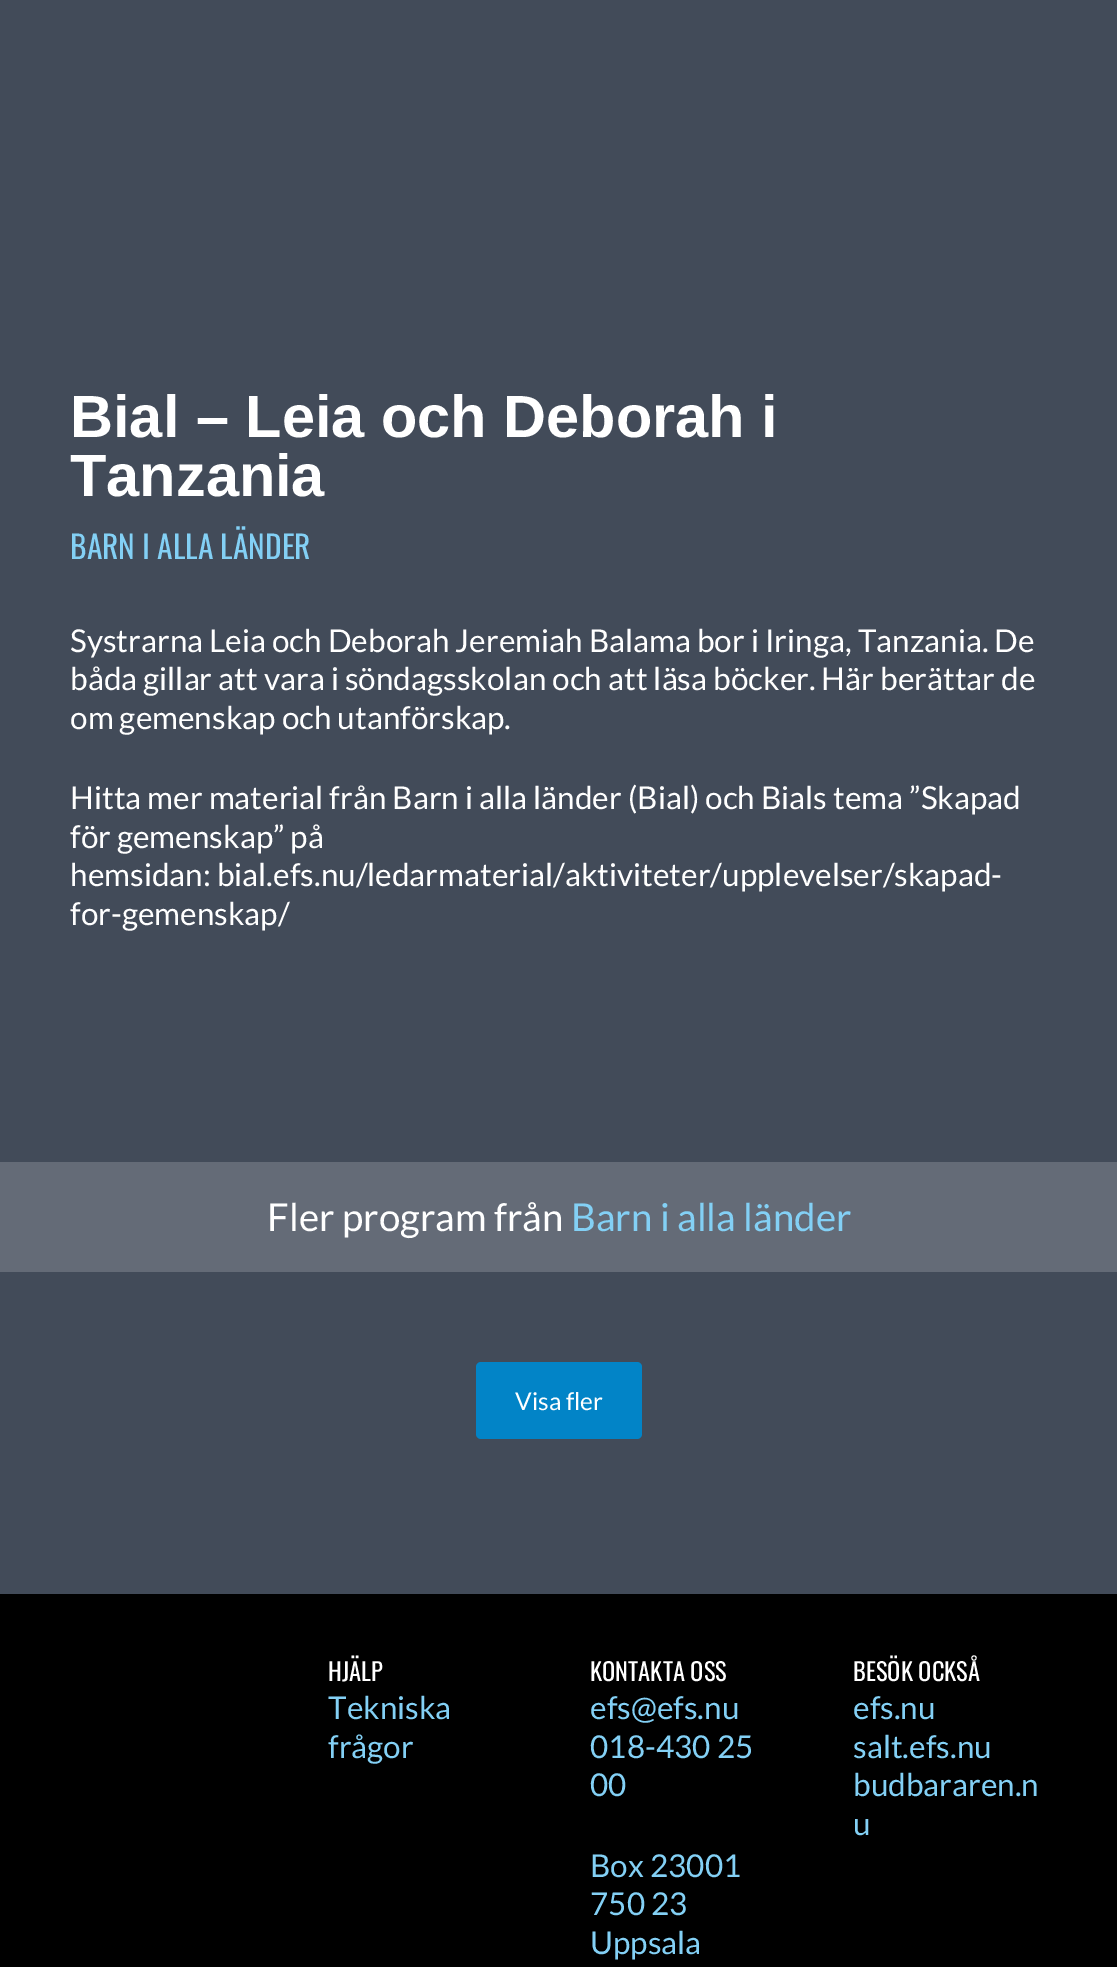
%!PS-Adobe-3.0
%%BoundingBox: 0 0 1117 1967
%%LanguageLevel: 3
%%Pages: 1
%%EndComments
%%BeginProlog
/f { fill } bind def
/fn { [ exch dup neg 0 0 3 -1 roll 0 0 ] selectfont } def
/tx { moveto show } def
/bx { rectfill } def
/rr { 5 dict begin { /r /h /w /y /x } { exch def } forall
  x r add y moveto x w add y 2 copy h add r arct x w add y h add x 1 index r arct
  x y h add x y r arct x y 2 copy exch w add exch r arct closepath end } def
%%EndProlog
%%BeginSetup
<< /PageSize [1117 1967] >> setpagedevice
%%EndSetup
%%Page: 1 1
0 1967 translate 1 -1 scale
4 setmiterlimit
0.259 0.294 0.349 setrgbcolor
0 0 1117 1967 bx
/LiberationSans-Bold 59.5 fn
1 setgray
(Bial – Leia och Deborah i) 70 437 tx
(Tanzania) 70 496 tx
/Oswald-Regular 31.5 fn
0.514 0.816 0.961 setrgbcolor
(BARN I ALLA LÄNDER) 70 559 tx
/Lato-Regular 31.5 fn
1 setgray
(Systrarna Leia och Deborah Jeremiah Balama bor i Iringa, Tanzania. De) 70 652 tx
(båda gillar att vara i söndagsskolan och att läsa böcker. Här berättar de) 70 690 tx
(om gemenskap och utanförskap.) 70 729 tx
(Hitta mer material från Barn i alla länder \(Bial\) och Bials tema ”Skapad) 70 809 tx
(för gemenskap” på) 70 848 tx
(hemsidan: bial.efs.nu/ledarmaterial/aktiviteter/upplevelser/skapad-) 70 886 tx
(for-gemenskap/) 70 925 tx
0.392 0.42 0.467 setrgbcolor
0 1162 1117 110 bx
/Lato-Regular 38.5 fn
1 setgray
(Fler program från) 267 1231 tx
0.514 0.816 0.961 setrgbcolor
(Barn i alla länder) 571 1231 tx
0.008 0.518 0.78 setrgbcolor
476 1362 166 77 5 rr f
/Lato-Regular 24.5 fn
1 setgray
(Visa fler) 515 1410 tx
0 setgray
0 1594 1117 373 bx
/Oswald-Regular 24.5 fn
1 setgray
(HJÄLP) 328 1681 tx
/Lato-Regular 31.5 fn
0.514 0.816 0.961 setrgbcolor
(Tekniska) 328 1719 tx
(frågor) 328 1758 tx
/Oswald-Regular 24.5 fn
1 setgray
(KONTAKTA OSS) 590 1681 tx
/Lato-Regular 31.5 fn
0.514 0.816 0.961 setrgbcolor
(efs@efs.nu) 590 1719 tx
(018-430 25) 590 1758 tx
(00) 590 1796 tx
(Box 23001) 590 1877 tx
(750 23) 590 1915 tx
(Uppsala) 590 1954 tx
/Oswald-Regular 24.5 fn
1 setgray
(BESÖK OCKSÅ) 853 1681 tx
/Lato-Regular 31.5 fn
0.514 0.816 0.961 setrgbcolor
(efs.nu) 853 1719 tx
(salt.efs.nu) 853 1758 tx
(budbararen.n) 853 1796 tx
(u) 853 1835 tx
showpage
%%EOF
